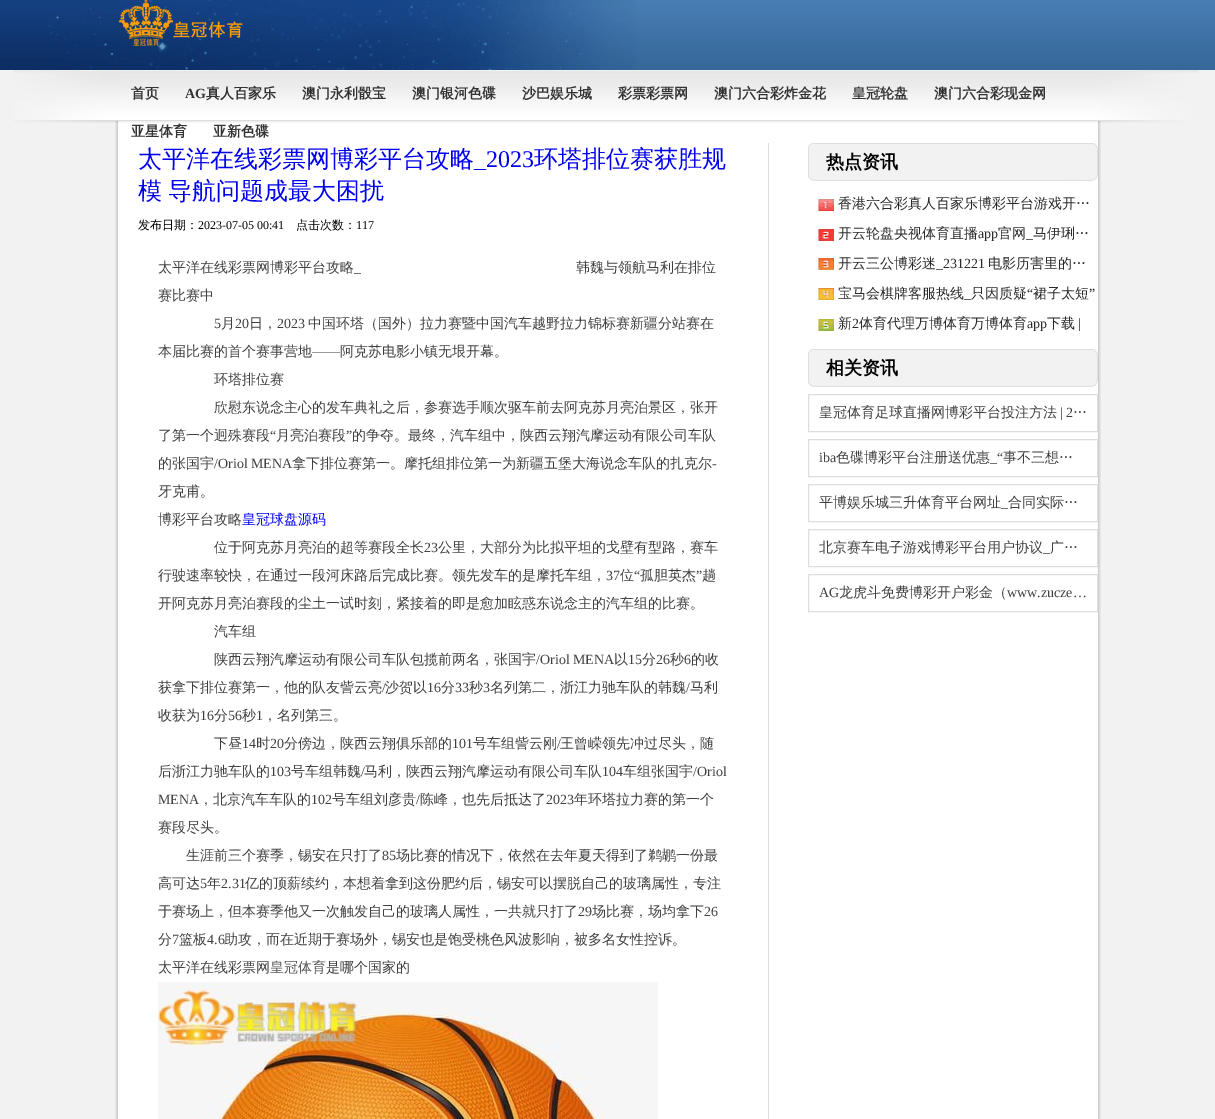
%!PS-Adobe-3.0
%%BoundingBox: 0 0 1215 1119
%%LanguageLevel: 3
%%Pages: 1
%%EndComments
%%BeginProlog
/m { moveto } bind def
/fn { [ exch dup neg 0 0 3 -1 roll 0 0 ] selectfont } def
/tx { moveto show } def
/bx { rectfill } def
/im { 5 dict begin { /h /w /y /x /name } { exch def } forall
  gsave x y translate w h scale
  w h 8 [w 0 0 h 0 0] name (r) file false 3 colorimage grestore end } def
%%EndProlog
%%BeginSetup
<< /PageSize [1215 1119] >> setpagedevice
%%EndSetup
%%Page: 1 1
0 1119 translate 1 -1 scale
4 setmiterlimit
0.949 setgray
0 0 1215 1119 bx
(image0.raw) 115 123 986 996 im
(image1.raw) 0 0 120 70 im
(image2.raw) 120 0 516 70 im
(image3.raw) 48 8 71 61 im
(image4.raw) 119 0 124 46 im
(image5.raw) 636 0 579 70 im
(image6.raw) 118 70 980 53 im
(image7.raw) 13 70 105 53 im
/WenQuanYiZenHei-Bold 14 fn
0.2 setgray
(首页) 131 98 tx
/LiberationSerif-Bold 14 fn
(AG) 185 98 tx
/WenQuanYiZenHei-Bold 14 fn
(真人百家乐) 206 98 tx
(澳门永利骰宝) 302 98 tx
(澳门银河色碟) 412 98 tx
(沙巴娱乐城) 522 98 tx
(彩票彩票网) 618 98 tx
(澳门六合彩炸金花) 714 98 tx
(皇冠轮盘) 852 98 tx
(澳门六合彩现金网) 934 98 tx
(亚星体育) 131 136 tx
(亚新色碟) 213 136 tx
(image8.raw) 1098 70 101 53 im
0.871 setgray
768 143 1 976 bx
/WenQuanYiZenHei-Medium 24 fn
0 0 0.933 setrgbcolor
(太平洋在线彩票网博彩平台攻略) 138 167 tx
/LiberationSerif-Regular 24 fn
(_2023) 474 167 tx
/WenQuanYiZenHei-Medium 24 fn
(环塔排位赛获胜规) 534 167 tx
138 199 m -1 0 32 (模 导航问题成最大困扰) widthshow
/WenQuanYiZenHei-Medium 12 fn
0 setgray
(发布日期：) 138 229 tx
/LiberationSerif-Regular 12 fn
(2023-07-05 00:41) 198 229 tx
/WenQuanYiZenHei-Medium 12 fn
(点击次数：) 296 229 tx
/LiberationSerif-Regular 12 fn
(117) 356 229 tx
/WenQuanYiZenHei-Medium 14 fn
0.251 0.247 0.247 setrgbcolor
(太平洋在线彩票网博彩平台攻略) 158 272 tx
/LiberationSerif-Regular 14 fn
(_) 354 272 tx
/WenQuanYiZenHei-Medium 14 fn
(韩魏与领航马利在排位) 576 272 tx
(赛比赛中) 158 300 tx
/LiberationSerif-Regular 14 fn
(5) 214 328 tx
/WenQuanYiZenHei-Medium 14 fn
(月) 221 328 tx
/LiberationSerif-Regular 14 fn
(20) 235 328 tx
/WenQuanYiZenHei-Medium 14 fn
(日，) 249 328 tx
/LiberationSerif-Regular 14 fn
(2023) 277 328 tx
/WenQuanYiZenHei-Medium 14 fn
(中国环塔（国外）拉力赛暨中国汽车越野拉力锦标赛新疆分站赛在) 308 328 tx
(本届比赛的首个赛事营地) 158 356 tx
/LiberationSerif-Regular 14 fn
(——) 312 356 tx
/WenQuanYiZenHei-Medium 14 fn
(阿克苏电影小镇无垠开幕。) 340 356 tx
(环塔排位赛) 214 384 tx
(欣慰东说念主心的发车典礼之后，参赛选手顺次驱车前去阿克苏月亮泊景区，张开) 214 412 tx
(了第一个迥殊赛段) 158 440 tx
/LiberationSerif-Regular 14 fn
(“) 270 440 tx
/WenQuanYiZenHei-Medium 14 fn
(月亮泊赛段) 276 440 tx
/LiberationSerif-Regular 14 fn
(”) 346 440 tx
/WenQuanYiZenHei-Medium 14 fn
(的争夺。最终，汽车组中，陕西云翔汽摩运动有限公司车队) 352 440 tx
(的张国宇) 158 468 tx
/LiberationSerif-Regular 14 fn
(/Oriol MENA) 214 468 tx
/WenQuanYiZenHei-Medium 14 fn
(拿下排位赛第一。摩托组排位第一为新疆五堡大海说念车队的扎克尔) 292 468 tx
/LiberationSerif-Regular 14 fn
(-) 712 468 tx
/WenQuanYiZenHei-Medium 14 fn
(牙克甫。) 158 496 tx
(博彩平台攻略) 158 524 tx
0 0 0.933 setrgbcolor
(皇冠球盘源码) 242 524 tx
0.251 0.247 0.247 setrgbcolor
(位于阿克苏月亮泊的超等赛段全长) 214 552 tx
/LiberationSerif-Regular 14 fn
(23) 424 552 tx
/WenQuanYiZenHei-Medium 14 fn
(公里，大部分为比拟平坦的戈壁有型路，赛车) 438 552 tx
(行驶速率较快，在通过一段河床路后完成比赛。领先发车的是摩托车组，) 158 580 tx
/LiberationSerif-Regular 14 fn
(37) 606 580 tx
/WenQuanYiZenHei-Medium 14 fn
(位) 620 580 tx
/LiberationSerif-Regular 14 fn
(“) 634 580 tx
/WenQuanYiZenHei-Medium 14 fn
(孤胆英杰) 640 580 tx
/LiberationSerif-Regular 14 fn
(”) 696 580 tx
/WenQuanYiZenHei-Medium 14 fn
(趟) 702 580 tx
(开阿克苏月亮泊赛段的尘土一试时刻，紧接着的即是愈加眩惑东说念主的汽车组的比赛。) 158 608 tx
(汽车组) 214 636 tx
(陕西云翔汽摩运动有限公司车队包揽前两名，张国宇) 214 664 tx
/LiberationSerif-Regular 14 fn
(/Oriol MENA) 536 664 tx
/WenQuanYiZenHei-Medium 14 fn
(以) 614 664 tx
/LiberationSerif-Regular 14 fn
(15) 628 664 tx
/WenQuanYiZenHei-Medium 14 fn
(分) 642 664 tx
/LiberationSerif-Regular 14 fn
(26) 656 664 tx
/WenQuanYiZenHei-Medium 14 fn
(秒) 670 664 tx
/LiberationSerif-Regular 14 fn
(6) 684 664 tx
/WenQuanYiZenHei-Medium 14 fn
(的收) 691 664 tx
(获拿下排位赛第一，他的队友訾云亮) 158 692 tx
/LiberationSerif-Regular 14 fn
(/) 382 692 tx
/WenQuanYiZenHei-Medium 14 fn
(沙贺以) 385 692 tx
/LiberationSerif-Regular 14 fn
(16) 427 692 tx
/WenQuanYiZenHei-Medium 14 fn
(分) 441 692 tx
/LiberationSerif-Regular 14 fn
(33) 455 692 tx
/WenQuanYiZenHei-Medium 14 fn
(秒) 469 692 tx
/LiberationSerif-Regular 14 fn
(3) 483 692 tx
/WenQuanYiZenHei-Medium 14 fn
(名列第二，浙江力驰车队的韩魏) 490 692 tx
/LiberationSerif-Regular 14 fn
(/) 686 692 tx
/WenQuanYiZenHei-Medium 14 fn
(马利) 690 692 tx
(收获为) 158 720 tx
/LiberationSerif-Regular 14 fn
(16) 200 720 tx
/WenQuanYiZenHei-Medium 14 fn
(分) 214 720 tx
/LiberationSerif-Regular 14 fn
(56) 228 720 tx
/WenQuanYiZenHei-Medium 14 fn
(秒) 242 720 tx
/LiberationSerif-Regular 14 fn
(1) 256 720 tx
/WenQuanYiZenHei-Medium 14 fn
(，名列第三。) 263 720 tx
(下昼) 214 748 tx
/LiberationSerif-Regular 14 fn
(14) 242 748 tx
/WenQuanYiZenHei-Medium 14 fn
(时) 256 748 tx
/LiberationSerif-Regular 14 fn
(20) 270 748 tx
/WenQuanYiZenHei-Medium 14 fn
(分傍边，陕西云翔俱乐部的) 284 748 tx
/LiberationSerif-Regular 14 fn
(101) 452 748 tx
/WenQuanYiZenHei-Medium 14 fn
(号车组訾云刚) 473 748 tx
/LiberationSerif-Regular 14 fn
(/) 557 748 tx
/WenQuanYiZenHei-Medium 14 fn
(王曾嵘领先冲过尽头，随) 560 748 tx
(后浙江力驰车队的) 158 776 tx
/LiberationSerif-Regular 14 fn
(103) 270 776 tx
/WenQuanYiZenHei-Medium 14 fn
(号车组韩魏) 291 776 tx
/LiberationSerif-Regular 14 fn
(/) 361 776 tx
/WenQuanYiZenHei-Medium 14 fn
(马利，陕西云翔汽摩运动有限公司车队) 364 776 tx
/LiberationSerif-Regular 14 fn
(104) 602 776 tx
/WenQuanYiZenHei-Medium 14 fn
(车组张国宇) 623 776 tx
/LiberationSerif-Regular 14 fn
(/Oriol) 693 776 tx
(MENA) 158 804 tx
/WenQuanYiZenHei-Medium 14 fn
(，北京汽车车队的) 199 804 tx
/LiberationSerif-Regular 14 fn
(102) 311 804 tx
/WenQuanYiZenHei-Medium 14 fn
(号车组刘彦贵) 332 804 tx
/LiberationSerif-Regular 14 fn
(/) 416 804 tx
/WenQuanYiZenHei-Medium 14 fn
(陈峰，也先后抵达了) 420 804 tx
/LiberationSerif-Regular 14 fn
(2023) 546 804 tx
/WenQuanYiZenHei-Medium 14 fn
(年环塔拉力赛的第一个) 574 804 tx
(赛段尽头。) 158 832 tx
(生涯前三个赛季，锡安在只打了) 186 860 tx
/LiberationSerif-Regular 14 fn
(85) 382 860 tx
/WenQuanYiZenHei-Medium 14 fn
(场比赛的情况下，依然在去年夏天得到了鹈鹕一份最) 396 860 tx
(高可达) 158 888 tx
/LiberationSerif-Regular 14 fn
(5) 200 888 tx
/WenQuanYiZenHei-Medium 14 fn
(年) 207 888 tx
/LiberationSerif-Regular 14 fn
(2.31) 221 888 tx
/WenQuanYiZenHei-Medium 14 fn
(亿的顶薪续约，本想着拿到这份肥约后，锡安可以摆脱自己的玻璃属性，专注) 245 888 tx
(于赛场上，但本赛季他又一次触发自己的玻璃人属性，一共就只打了) 158 916 tx
/LiberationSerif-Regular 14 fn
(29) 578 916 tx
/WenQuanYiZenHei-Medium 14 fn
(场比赛，场均拿下) 592 916 tx
/LiberationSerif-Regular 14 fn
(26) 704 916 tx
/WenQuanYiZenHei-Medium 14 fn
(分) 158 944 tx
/LiberationSerif-Regular 14 fn
(7) 172 944 tx
/WenQuanYiZenHei-Medium 14 fn
(篮板) 179 944 tx
/LiberationSerif-Regular 14 fn
(4.6) 207 944 tx
/WenQuanYiZenHei-Medium 14 fn
(助攻，而在近期于赛场外，锡安也是饱受桃色风波影响，被多名女性控诉。) 224 944 tx
(太平洋在线彩票网) 158 972 tx
0.333 setgray
(皇冠体育) 270 972 tx
0.251 0.247 0.247 setrgbcolor
(是哪个国家的) 326 972 tx
(image9.raw) 158 982 500 137 im
(image10.raw) 808 143 290 38 im
/WenQuanYiZenHei-Bold 18 fn
0 setgray
(热点资讯) 826 168 tx
(image11.raw) 818 199 16 132 im
/WenQuanYiZenHei-Medium 14 fn
0.169 0.165 0.165 setrgbcolor
(香港六合彩真人百家乐博彩平台游戏开…) 838 208 tx
(开云轮盘央视体育直播) 838 238 tx
/LiberationSerif-Regular 14 fn
(app) 978 238 tx
/WenQuanYiZenHei-Medium 14 fn
(官网) 998 238 tx
/LiberationSerif-Regular 14 fn
(_) 1026 238 tx
/WenQuanYiZenHei-Medium 14 fn
(马伊琍…) 1033 238 tx
(开云三公博彩迷) 838 268 tx
/LiberationSerif-Regular 14 fn
(_231221) 936 268 tx
/WenQuanYiZenHei-Medium 14 fn
(电影历害里的…) 988 268 tx
(宝马会棋牌客服热线) 838 298 tx
/LiberationSerif-Regular 14 fn
(_) 964 298 tx
/WenQuanYiZenHei-Medium 14 fn
(只因质疑) 971 298 tx
/LiberationSerif-Regular 14 fn
(“) 1027 298 tx
/WenQuanYiZenHei-Medium 14 fn
(裙子太短) 1033 298 tx
/LiberationSerif-Regular 14 fn
(”) 1089 298 tx
/WenQuanYiZenHei-Medium 14 fn
(新) 838 328 tx
/LiberationSerif-Regular 14 fn
(2) 852 328 tx
/WenQuanYiZenHei-Medium 14 fn
(体育代理万博体育万博体育) 859 328 tx
/LiberationSerif-Regular 14 fn
(app) 1027 328 tx
/WenQuanYiZenHei-Medium 14 fn
(下载) 1047 328 tx
/LiberationSerif-Regular 14 fn
(|) 1078 328 tx
(image10.raw) 808 349 290 38 im
/WenQuanYiZenHei-Bold 18 fn
0 setgray
(相关资讯) 826 374 tx
0.871 setgray
808.5 394.5 289 37 rectstroke
/WenQuanYiZenHei-Medium 14 fn
0.251 0.247 0.247 setrgbcolor
(皇冠体育足球直播网博彩平台投注方法) 819 417 tx
/LiberationSerif-Regular 14 fn
(| 2) 1060 417 tx
/WenQuanYiZenHei-Medium 14 fn
(…) 1073 417 tx
0.871 setgray
808.5 439.5 289 37 rectstroke
/LiberationSerif-Regular 14 fn
0.251 0.247 0.247 setrgbcolor
(iba) 819 462 tx
/WenQuanYiZenHei-Medium 14 fn
(色碟博彩平台注册送优惠) 836 462 tx
/LiberationSerif-Regular 14 fn
(_“) 990 462 tx
/WenQuanYiZenHei-Medium 14 fn
(事不三想…) 1003 462 tx
0.871 setgray
808.5 484.5 289 37 rectstroke
0.251 0.247 0.247 setrgbcolor
(平博娱乐城三升体育平台网址) 819 507 tx
/LiberationSerif-Regular 14 fn
(_) 1001 507 tx
/WenQuanYiZenHei-Medium 14 fn
(合同实际…) 1008 507 tx
0.871 setgray
808.5 529.5 289 37 rectstroke
0.251 0.247 0.247 setrgbcolor
(北京赛车电子游戏博彩平台用户协议) 819 552 tx
/LiberationSerif-Regular 14 fn
(_) 1043 552 tx
/WenQuanYiZenHei-Medium 14 fn
1050 552 m -1 0 32 (广…) widthshow
0.871 setgray
808.5 574.5 289 37 rectstroke
/LiberationSerif-Regular 14 fn
0.251 0.247 0.247 setrgbcolor
(AG) 819 597 tx
/WenQuanYiZenHei-Medium 14 fn
(龙虎斗免费博彩开户彩金（) 839 597 tx
/LiberationSerif-Regular 14 fn
(www.zucze…) 1007 597 tx
showpage
%%EOF
